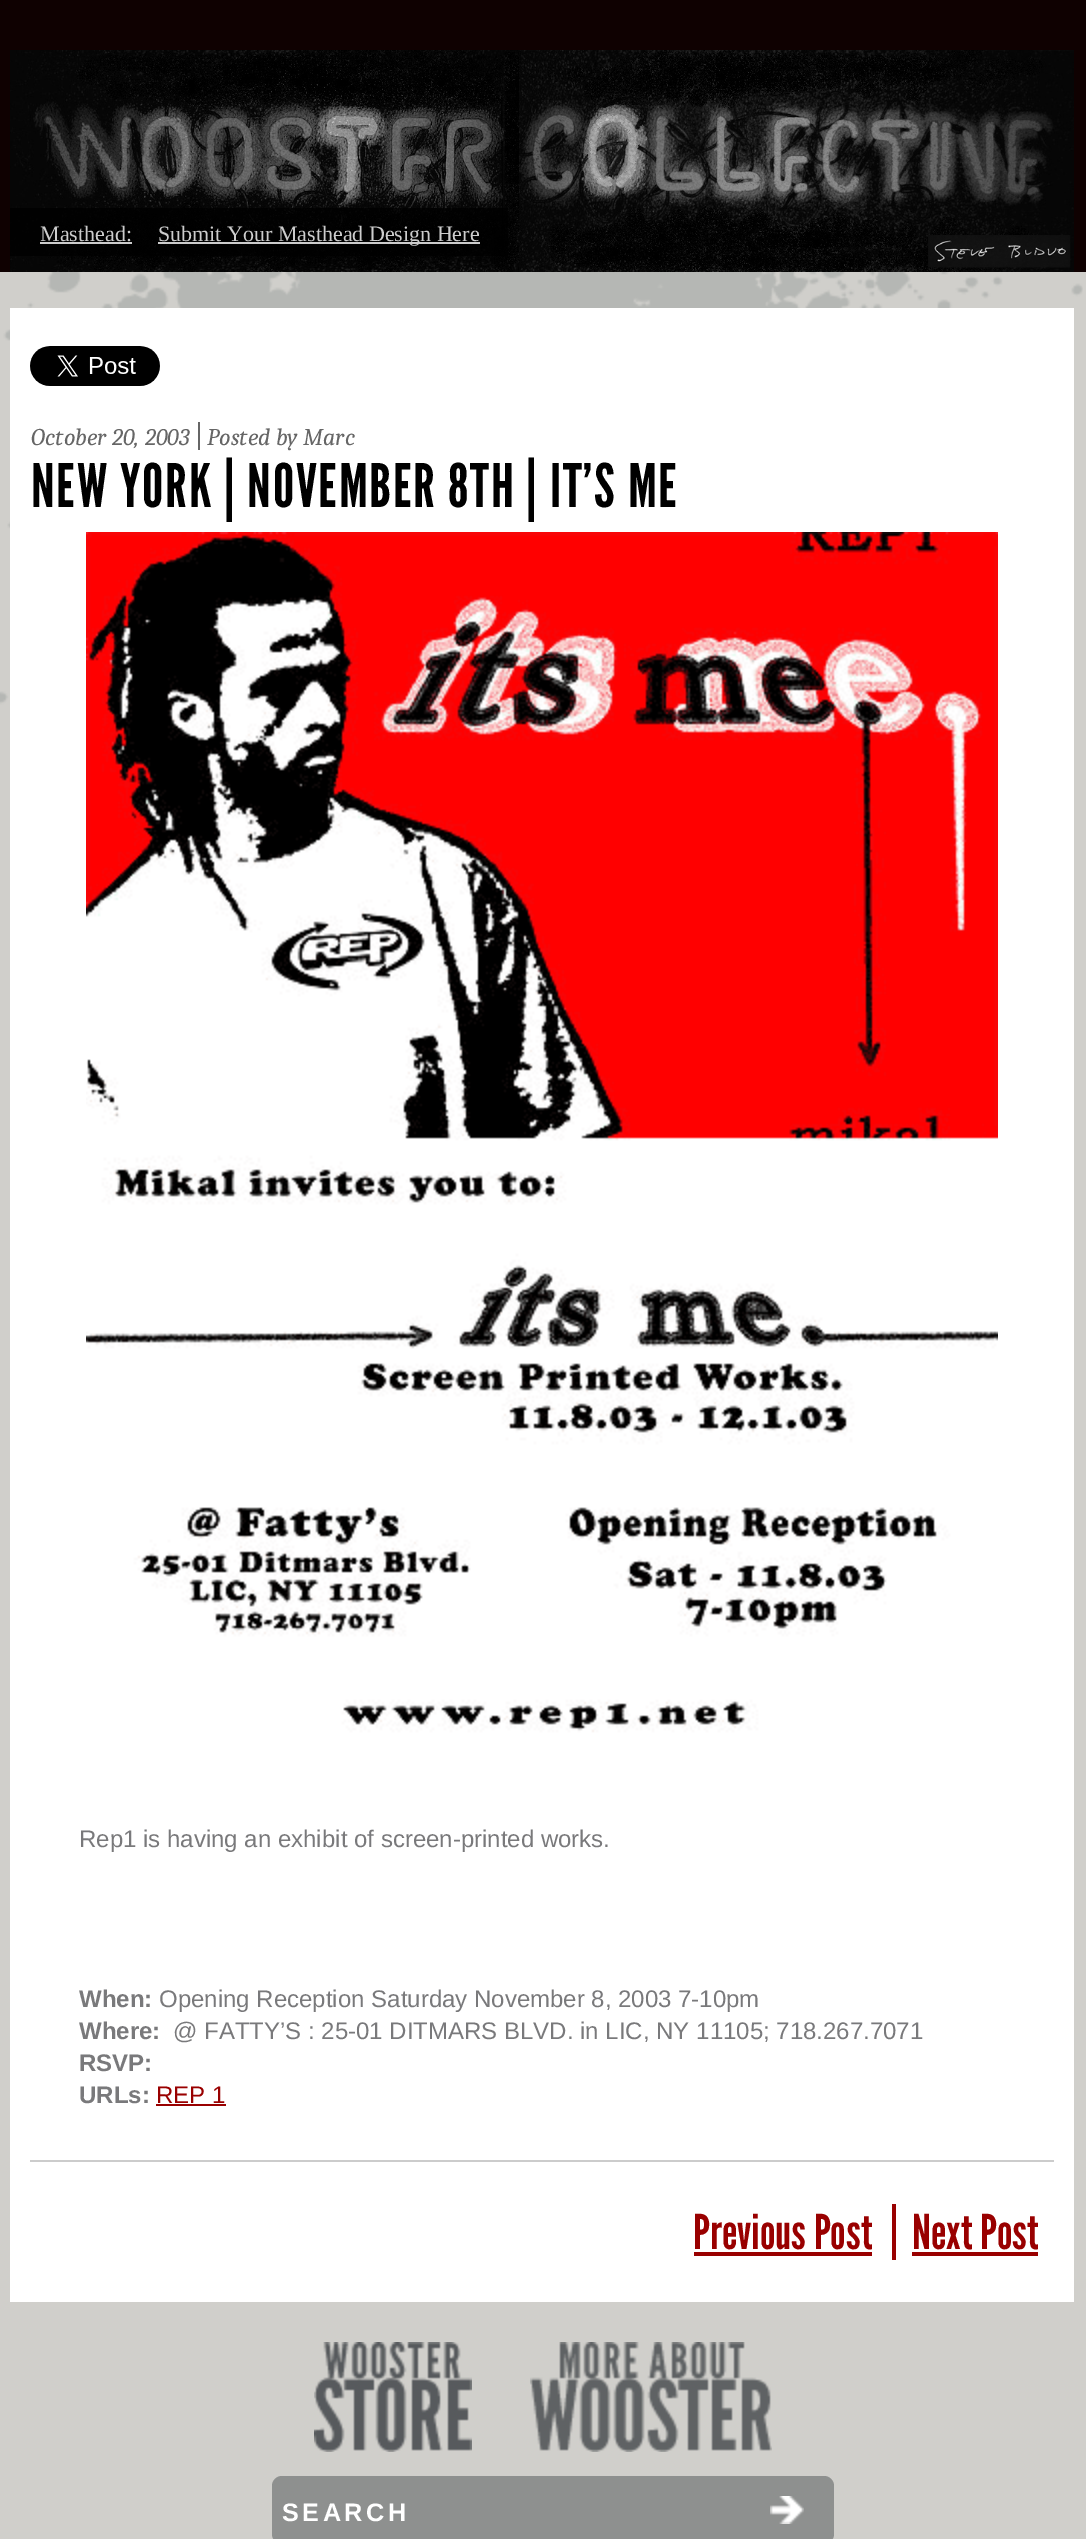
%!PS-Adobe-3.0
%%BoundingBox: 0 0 1086 2539
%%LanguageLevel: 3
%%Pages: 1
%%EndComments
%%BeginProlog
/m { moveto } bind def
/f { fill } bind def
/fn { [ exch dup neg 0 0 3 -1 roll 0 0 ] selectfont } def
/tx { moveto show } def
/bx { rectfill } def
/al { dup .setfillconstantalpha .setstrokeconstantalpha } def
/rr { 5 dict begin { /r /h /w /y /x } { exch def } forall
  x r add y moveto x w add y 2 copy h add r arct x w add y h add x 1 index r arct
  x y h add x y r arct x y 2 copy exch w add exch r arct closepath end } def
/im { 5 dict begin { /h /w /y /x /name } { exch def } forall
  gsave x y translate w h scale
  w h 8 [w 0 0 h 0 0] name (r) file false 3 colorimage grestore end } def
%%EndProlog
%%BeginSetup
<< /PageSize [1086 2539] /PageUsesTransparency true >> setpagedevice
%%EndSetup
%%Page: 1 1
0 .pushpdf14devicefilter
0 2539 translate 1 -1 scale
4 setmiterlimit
0.059 0.004 0.004 setrgbcolor
0 0 1086 2539 bx
(image0.raw) 10 50 1064 222 im
0.8 al
0 setgray
10 208 498 48 bx
/LiberationSerif-Regular 22 fn
1 al
0.8 setgray
(Masthead:) 40 241 tx
40 242 92 2 bx
158 242 322 2 bx
(Submit Your Masthead Design Here) 158 241 tx
0.816 0.812 0.796 setrgbcolor
0 272 1086 2267 bx
(image1.raw) 0 272 1083 433 im
1 setgray
10 308 1064 1994 bx
(image2.raw) 30 346 130 40 im
/Caladea-Italic 24 fn
0.4 setgray
(October 20, 2003) 31 445 tx
(Posted by Marc) 207 445 tx
198 422 2 28 bx
/LeagueGothic-Regular 60 fn
0 setgray
31 507 m 1.8 0 (NEW YORK | NOVEMBER 8TH | IT’S ME) ashow
(image3.raw) 86 532 912 1201 im
/LiberationSans-Regular 24 fn
0.475 0.475 0.482 setrgbcolor
(Rep1 is having an exhibit of screen-printed works.) 79 1847 tx
/LiberationSans-Bold 24 fn
(When:) 79 2007 tx
/LiberationSans-Regular 24 fn
(Opening Reception Saturday November 8, 2003 7-10pm) 159 2007 tx
/LiberationSans-Bold 24 fn
(Where:) 79 2039 tx
/LiberationSans-Regular 24 fn
(@ FATTY’S : 25-01 DITMARS BLVD. in LIC, NY 11105; 718.267.7071) 173 2039 tx
/LiberationSans-Bold 24 fn
(RSVP:) 79 2071 tx
(URLs:) 79 2103 tx
/LiberationSans-Regular 24 fn
0.6 0 0 setrgbcolor
(REP 1) 156 2103 tx
156 2104 70 2 bx
0.8 setgray
30 2160 1024 2 bx
/LeagueGothic-Regular 48 fn
0.6 0 0 setrgbcolor
(Previous Post) 693 2249 tx
694 2252 178 4 bx
(Next Post) 912 2249 tx
892 2204 4 56 bx
912 2252 126 4 bx
(image4.raw) 314 2342 158 110 im
(image5.raw) 530 2342 242 110 im
0.557 0.565 0.561 setrgbcolor
272 2476 562 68 10 rr f
/LiberationSans-Bold 25.25 fn
1 setgray
282 2521 m 3.5 0 (SEARCH) ashow
(image6.raw) 770 2496 34 28 im
.poppdf14devicefilter showpage
%%EOF
